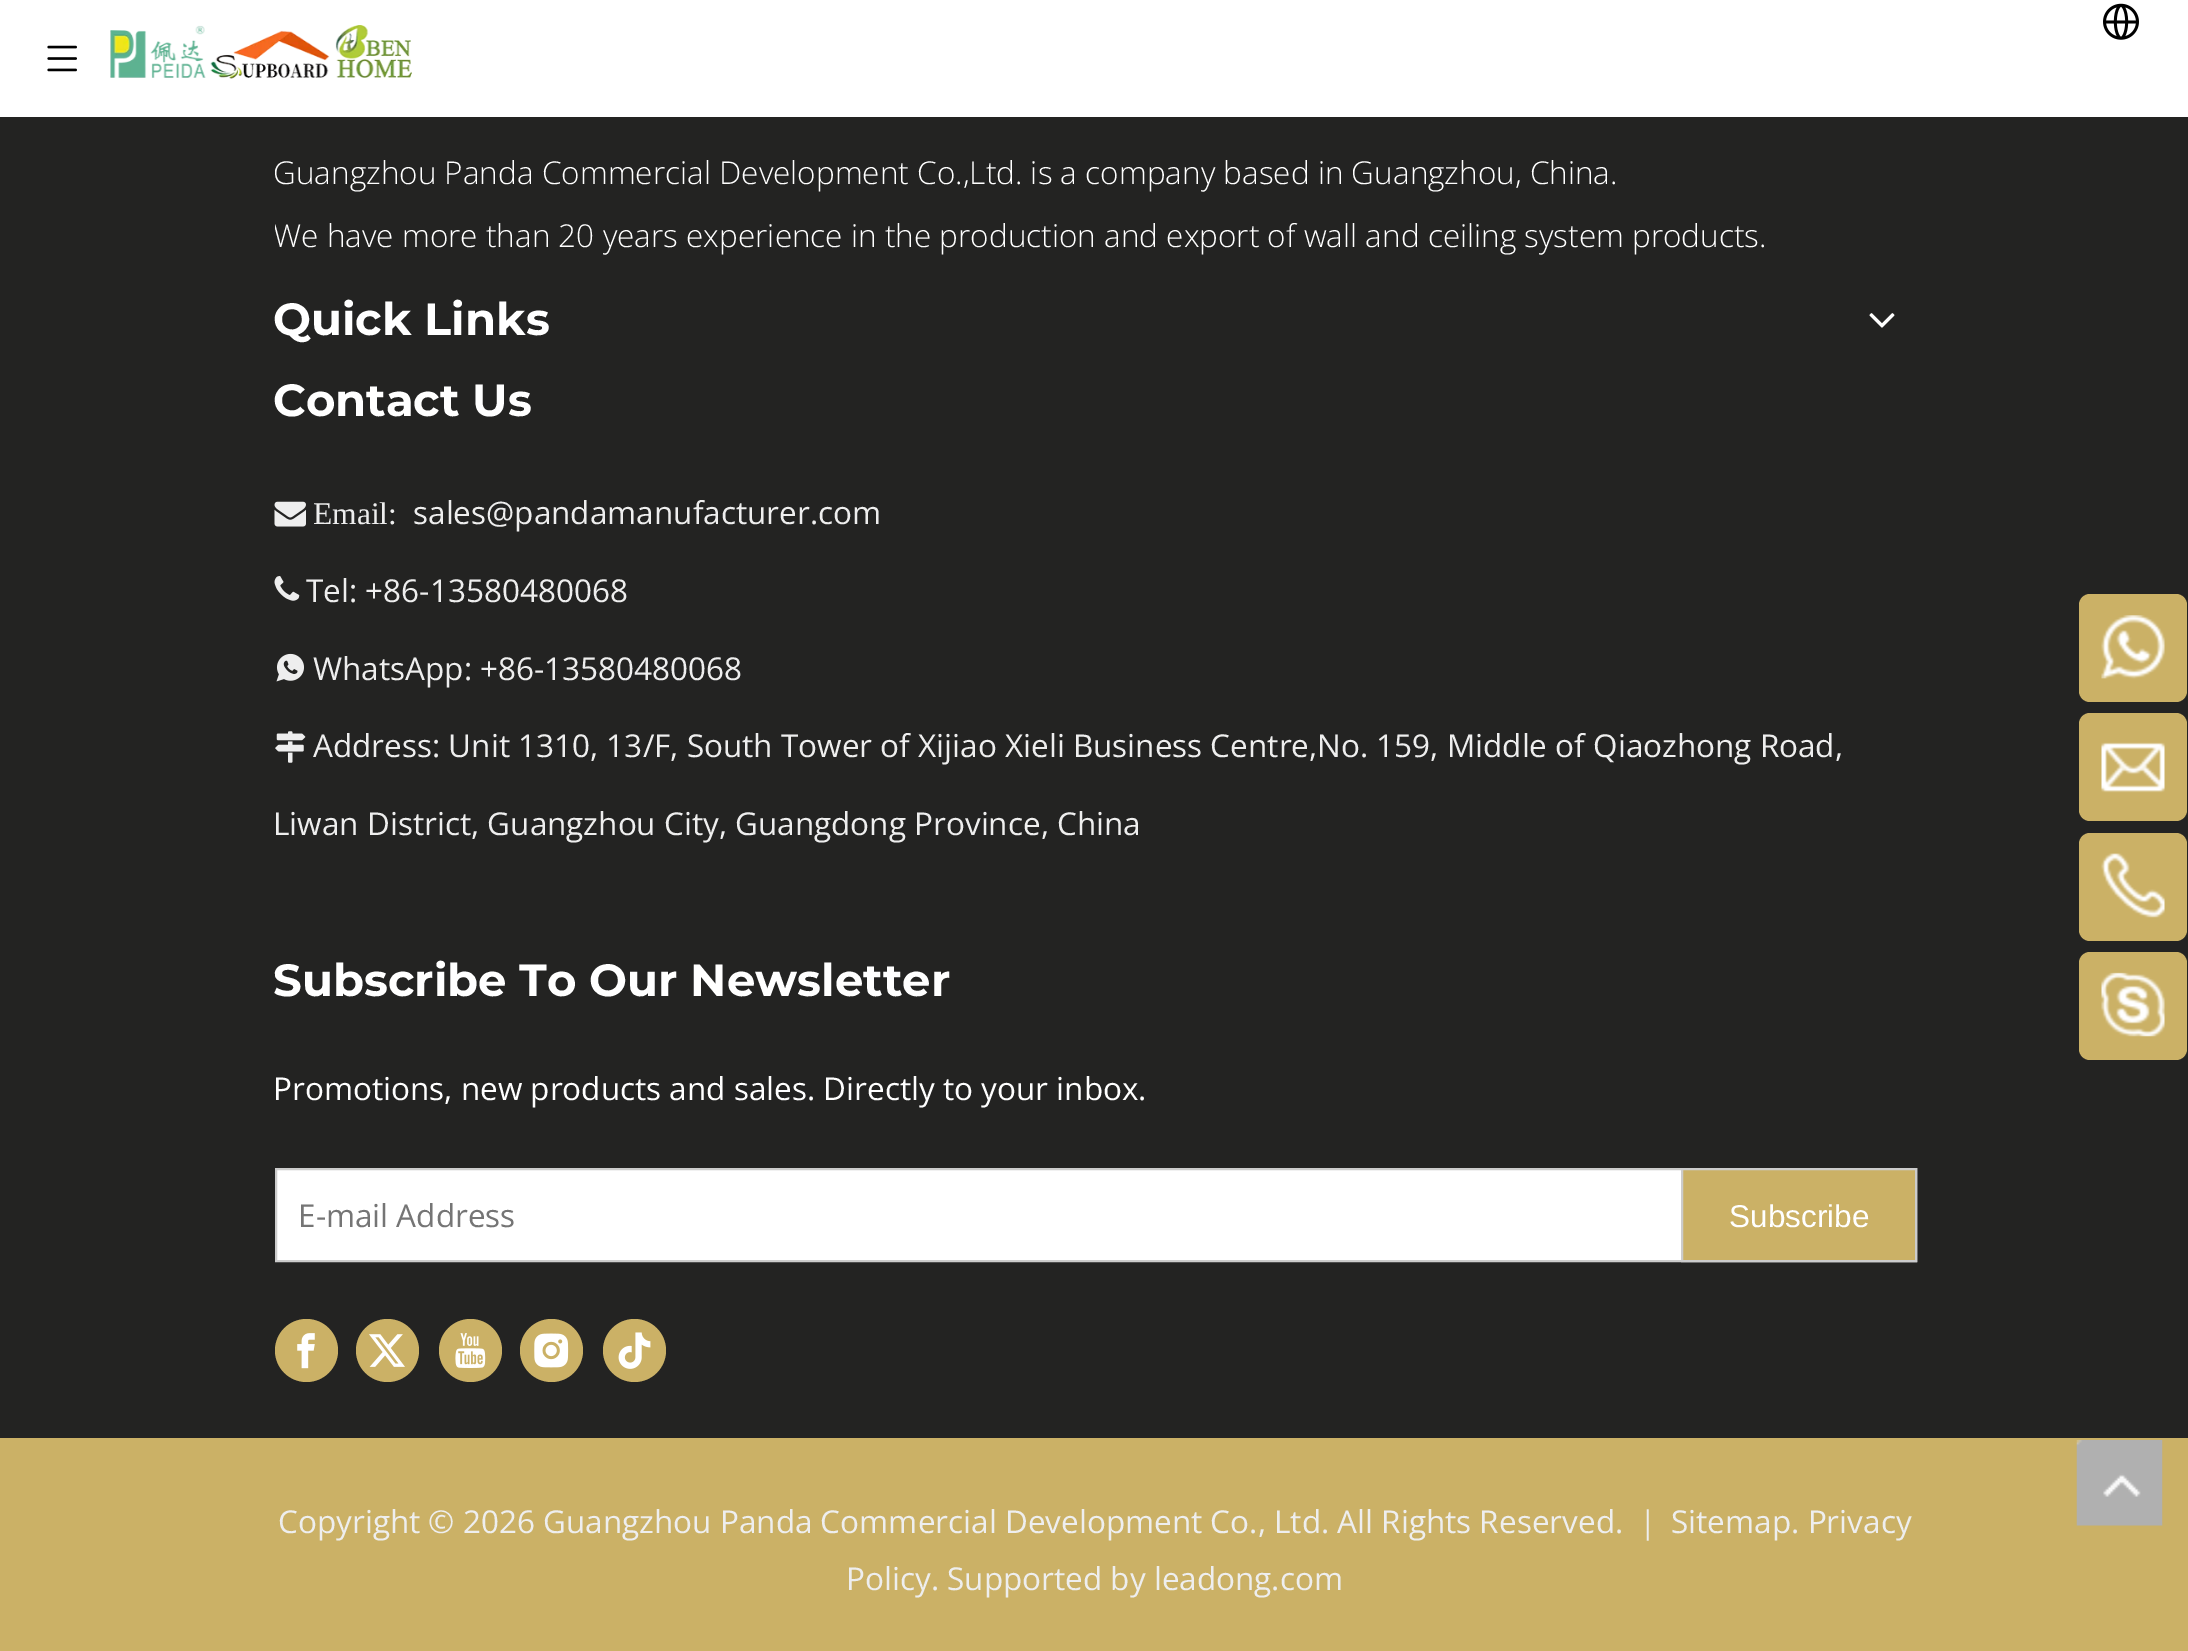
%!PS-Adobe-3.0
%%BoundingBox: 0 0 2188 1651
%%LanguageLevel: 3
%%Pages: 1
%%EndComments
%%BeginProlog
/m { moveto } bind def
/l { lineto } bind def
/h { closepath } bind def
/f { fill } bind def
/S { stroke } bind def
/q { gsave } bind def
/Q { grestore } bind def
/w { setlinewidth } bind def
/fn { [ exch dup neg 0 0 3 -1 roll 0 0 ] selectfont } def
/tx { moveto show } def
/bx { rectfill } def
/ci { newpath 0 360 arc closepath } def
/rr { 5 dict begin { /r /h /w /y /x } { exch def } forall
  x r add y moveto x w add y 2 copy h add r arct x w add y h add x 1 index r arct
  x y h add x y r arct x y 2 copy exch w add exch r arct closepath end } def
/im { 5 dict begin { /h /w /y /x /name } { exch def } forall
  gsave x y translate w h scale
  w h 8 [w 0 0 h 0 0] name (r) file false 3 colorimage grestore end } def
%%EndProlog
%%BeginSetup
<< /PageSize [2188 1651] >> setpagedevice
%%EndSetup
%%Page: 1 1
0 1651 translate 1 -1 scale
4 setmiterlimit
0.137 0.137 0.133 setrgbcolor
0 0 2188 1651 bx
1 setgray
0 0 2188 117 bx
(image0.raw) 47 45 30 27 im
(image1.raw) 110 25 302 54 im
(image2.raw) 2103 3 36 37 im
/OpenSans-Light 31.5 fn
(Guangzhou Panda Commercial Development Co.,Ltd. is a company based in Guangzhou, China.) 273 184 tx
q
275 142 1575 126 rectclip
(We have more than 20 years experience in the production and export of wall and ceiling system products.) 273 247 tx
Q
/Montserrat-Thin 45 fn
(Quick Links) 273 335 tx
(image3.raw) 1869 313 26 15 im
(Contact Us) 273 416 tx
(image4.raw) 274 501 32 26 im
/LiberationSerif-Regular 31.5 fn
0.933 setgray
(Email:) 313 524 tx
/OpenSans-Regular 31.5 fn
(sales@pandamanufacturer.com) 413 524 tx
(image5.raw) 274 576 26 25 im
(Tel: +86-13580480068) 306 602 tx
(image6.raw) 276 653 28 29 im
(WhatsApp: +86-13580480068) 313 680 tx
(image7.raw) 275 731 31 32 im
(Address: Unit 1310, 13/F, South Tower of Xijiao Xieli Business Centre,No. 159, Middle of Qiaozhong Road,) 313 757 tx
(Liwan District, Guangzhou City, Guangdong Province, China) 273 835 tx
/Montserrat-Thin 45 fn
1 setgray
(Subscribe To Our Newsletter) 273 996 tx
/OpenSans-Regular 31.5 fn
(Promotions, new products and sales. Directly to your inbox.) 273 1100 tx
277 1170 1404 90 bx
0.8 setgray
2 w
276 1169 1640 92 rectstroke
0.459 setgray
(E-mail Address) 298 1227 tx
0.796 0.694 0.4 setrgbcolor
1682 1169 m 1916 1169 l 1916 1261 l 1682 1261 l h q f Q
0.8 setgray
S
/LiberationSans-Regular 31.5 fn
1 setgray
(Subscribe) 1729 1227 tx
0.796 0.694 0.4 setrgbcolor
306.5 1350.5 31.5 ci f
(image8.raw) 297 1333 18 36 im
387.5 1350.5 31.5 ci f
(image9.raw) 369 1334 36 33 im
470.5 1350.5 31.5 ci f
(image10.raw) 455 1333 31 35 im
551.5 1350.5 31.5 ci f
(image11.raw) 534 1333 35 35 im
634.5 1350.5 31.5 ci f
(image12.raw) 618 1332 33 37 im
2079 594 108 108 11 rr f
(image13.raw) 2101 615 64 64 im
2079 713 108 108 11 rr f
(image14.raw) 2101 742 64 51 im
2079 833 108 108 11 rr f
(image15.raw) 2101 853 64 65 im
2079 952 108 108 11 rr f
(image16.raw) 2101 972 64 65 im
0 1438 2188 213 bx
/OpenSans-Regular 31.5 fn
0.933 setgray
(Copyright © 2026 Guangzhou Panda Commercial Development Co., Ltd. All Rights Reserved.) 278 1533 tx
/WenQuanYiZenHei-Medium 31.5 fn
(｜) 1632 1533 tx
/OpenSans-Regular 31.5 fn
(Sitemap. Privacy) 1671 1533 tx
(Policy. Supported by leadong.com) 846 1590 tx
(image17.raw) 2076 1440 87 86 im
showpage
%%EOF
